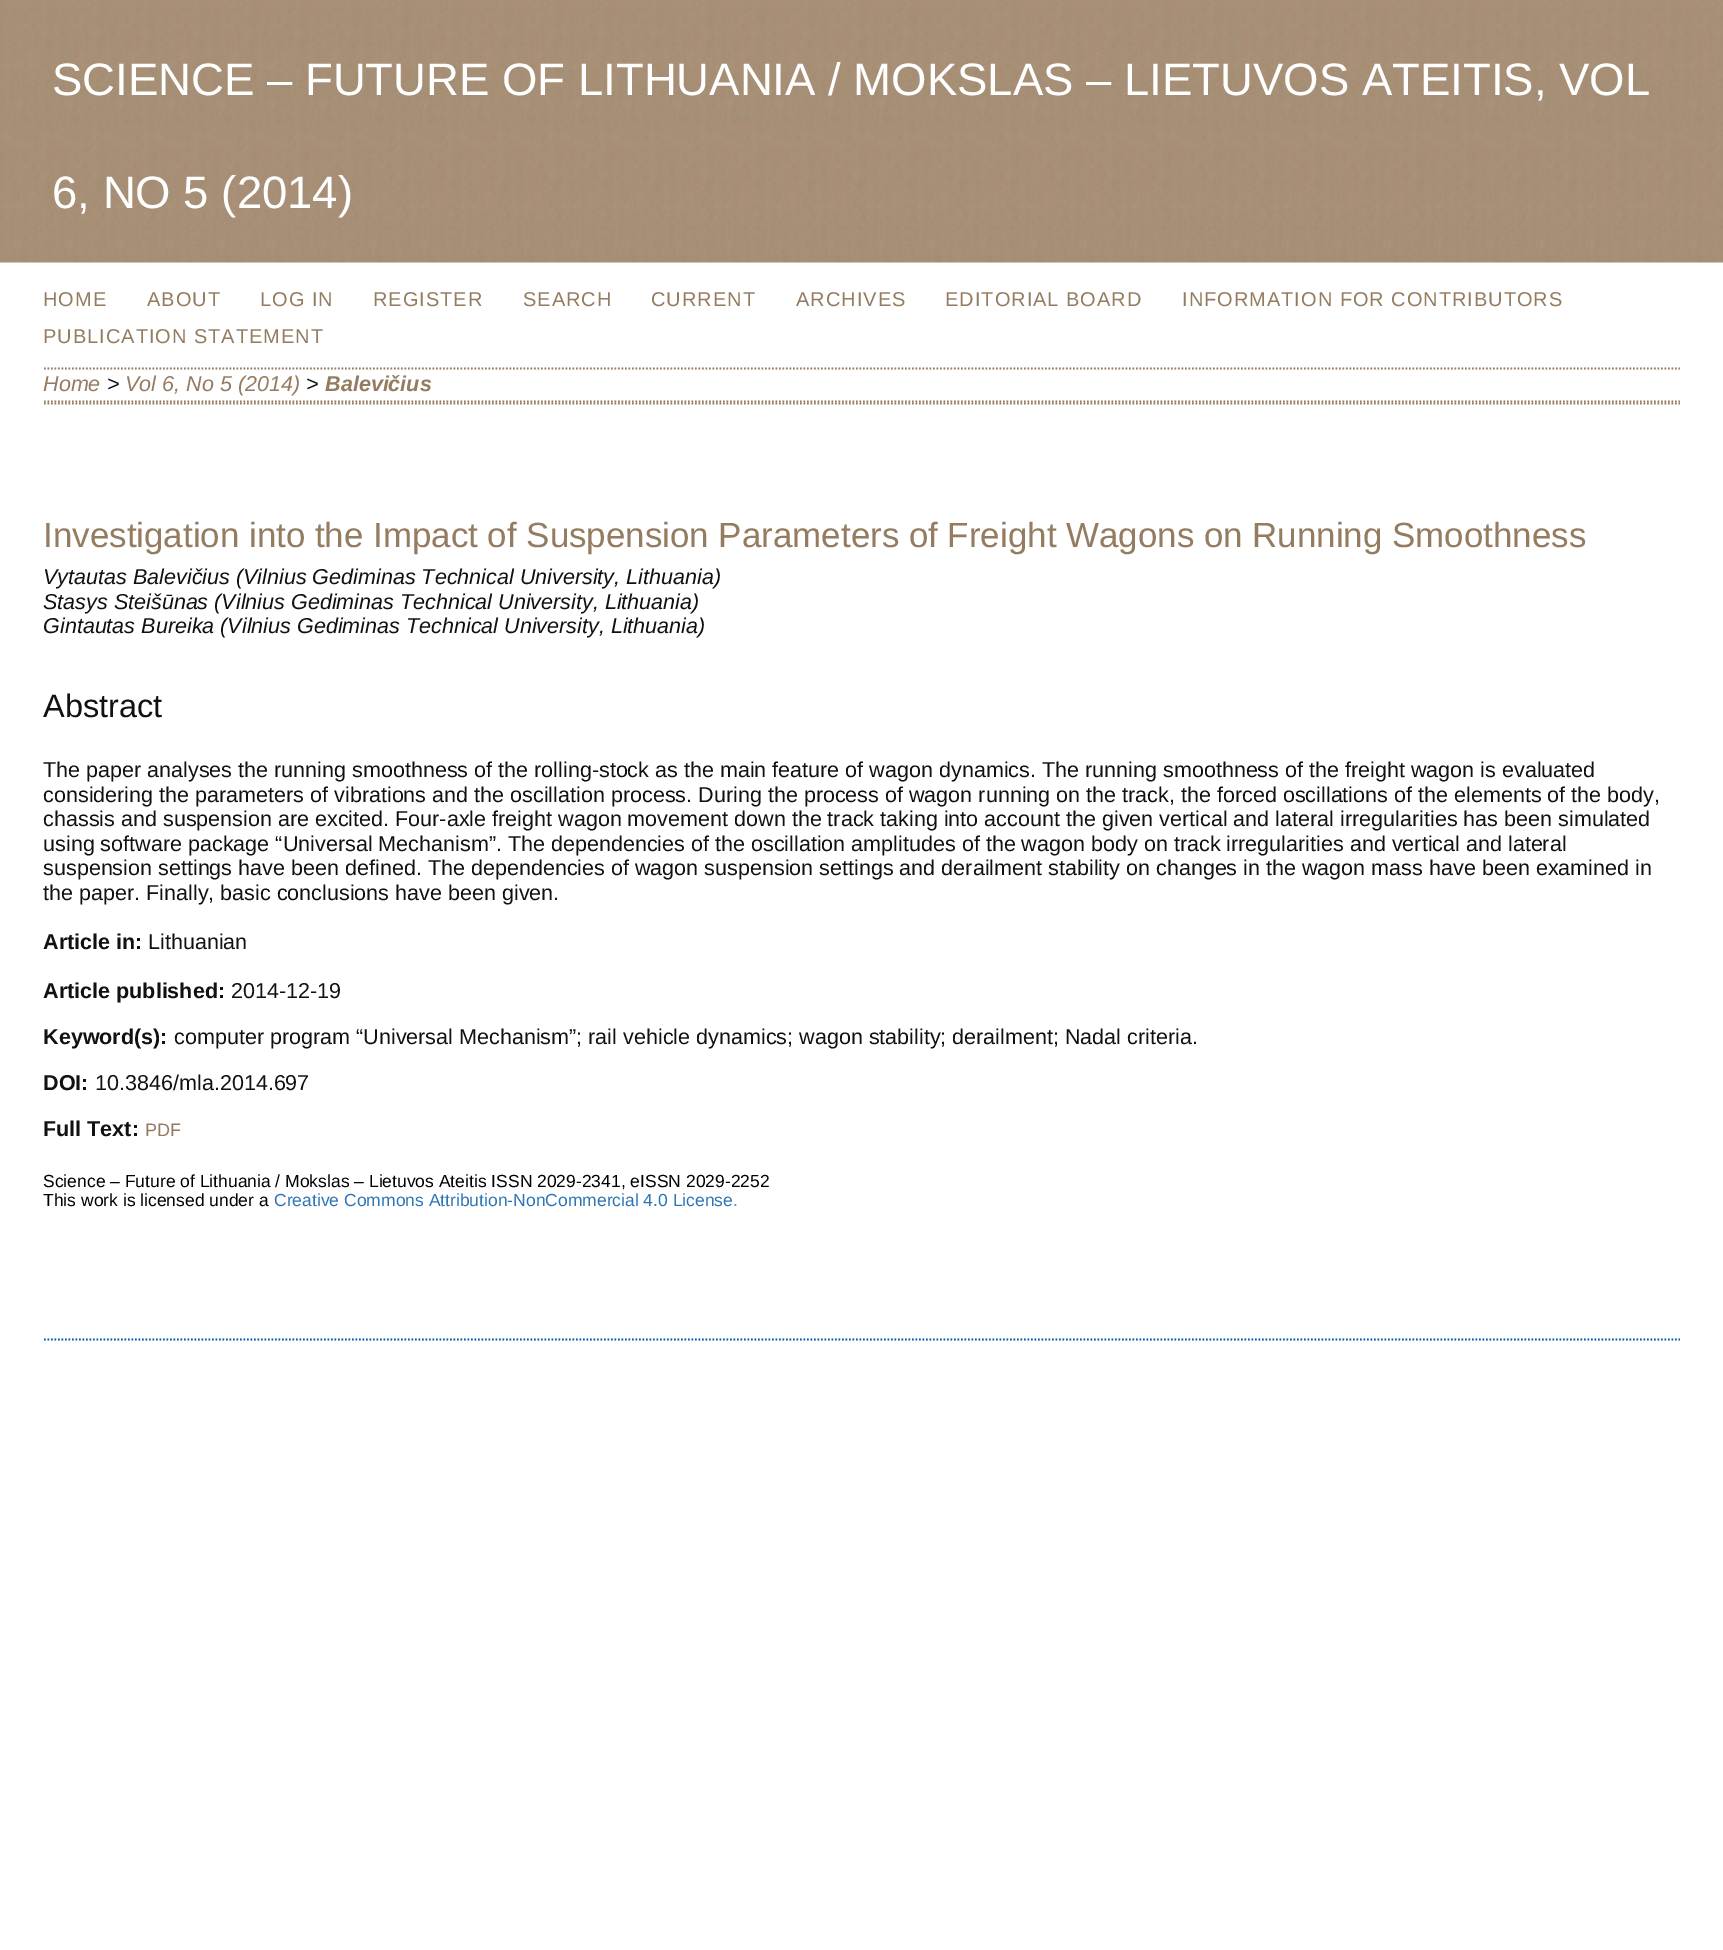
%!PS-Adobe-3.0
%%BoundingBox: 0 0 1723 1950
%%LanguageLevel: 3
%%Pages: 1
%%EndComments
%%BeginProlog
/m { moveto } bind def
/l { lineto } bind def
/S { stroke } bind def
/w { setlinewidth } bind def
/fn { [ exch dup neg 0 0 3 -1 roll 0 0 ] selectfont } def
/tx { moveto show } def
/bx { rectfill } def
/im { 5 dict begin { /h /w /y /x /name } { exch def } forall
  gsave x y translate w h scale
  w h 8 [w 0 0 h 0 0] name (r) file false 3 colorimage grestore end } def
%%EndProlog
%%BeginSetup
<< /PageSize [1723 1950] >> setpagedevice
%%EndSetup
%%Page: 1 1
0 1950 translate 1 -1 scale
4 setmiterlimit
1 setgray
0 0 1723 1950 bx
(image0.raw) 0 0 1723 263 im
/LiberationSans-Regular 45.5 fn
(SCIENCE – FUTURE OF LITHUANIA / MOKSLAS – LIETUVOS ATEITIS, VOL) 52 95 tx
(6, NO 5 \(2014\)) 52 208 tx
0 0.365 0.671 setrgbcolor
1.8 w
[1.75 1.75] 0 setdash
44 1339.5 m 1680 1339.5 l S
0.58 0.486 0.38 setrgbcolor
44 368.5 m 1680 368.5 l S
/LiberationSans-Regular 20 fn
43 306 m 1 0 (HOME) ashow
147 306 m 1 0 (ABOUT) ashow
260 306 m 1 0 (LOG IN) ashow
373 306 m 1 0 (REGISTER) ashow
523 306 m 1 0 (SEARCH) ashow
651 306 m 1 0 (CURRENT) ashow
796 306 m 1 0 (ARCHIVES) ashow
945 306 m 1 0 (EDITORIAL BOARD) ashow
1182 306 m 1 0 (INFORMATION FOR CONTRIBUTORS) ashow
43 343 m 1 0 (PUBLICATION STATEMENT) ashow
44 401.5 m 1680 401.5 l S
/LiberationSans-Italic 21.55 fn
(Home) 43 391 tx
0.067 setgray
(>) 107 391 tx
0.58 0.486 0.38 setrgbcolor
(Vol 6, No 5 \(2014\)) 125 391 tx
0.067 setgray
(>) 306 391 tx
/LiberationSans-BoldItalic 21.55 fn
0.58 0.486 0.38 setrgbcolor
(Balevičius) 325 391 tx
44 403.5 m 1680 403.5 l S
/LiberationSans-Regular 34.95 fn
43 547 m -0.1 0 32 (Investigation into the Impact of Suspension Parameters of Freight Wagons on Running Smoothness) widthshow
/LiberationSans-Italic 21.55 fn
0.067 setgray
(Vytautas Balevičius \(Vilnius Gediminas Technical University, Lithuania\)) 43 584 tx
(Stasys Steišūnas \(Vilnius Gediminas Technical University, Lithuania\)) 43 609 tx
(Gintautas Bureika \(Vilnius Gediminas Technical University, Lithuania\)) 43 633 tx
/LiberationSans-Regular 32.5 fn
(Abstract) 43 717 tx
/LiberationSans-Regular 21.55 fn
(The paper analyses the running smoothness of the rolling-stock as the main feature of wagon dynamics. The running smoothness of the freight wagon is evaluated) 43 777 tx
(considering the parameters of vibrations and the oscillation process. During the process of wagon running on the track, the forced oscillations of the elements of the body,) 43 802 tx
(chassis and suspension are excited. Four-axle freight wagon movement down the track taking into account the given vertical and lateral irregularities has been simulated) 43 826 tx
(using software package “Universal Mechanism”. The dependencies of the oscillation amplitudes of the wagon body on track irregularities and vertical and lateral) 43 851 tx
(suspension settings have been defined. The dependencies of wagon suspension settings and derailment stability on changes in the wagon mass have been examined in) 43 875 tx
(the paper. Finally, basic conclusions have been given.) 43 900 tx
/LiberationSans-Bold 21.55 fn
(Article in:) 43 949 tx
/LiberationSans-Regular 21.55 fn
(Lithuanian) 148 949 tx
/LiberationSans-Bold 21.55 fn
(Article published:) 43 998 tx
/LiberationSans-Regular 21.55 fn
(2014-12-19) 231 998 tx
/LiberationSans-Bold 21.55 fn
(Keyword\(s\):) 43 1044 tx
/LiberationSans-Regular 21.55 fn
(computer program “Universal Mechanism”; rail vehicle dynamics; wagon stability; derailment; Nadal criteria.) 174 1044 tx
/LiberationSans-Bold 21.55 fn
(DOI:) 43 1090 tx
/LiberationSans-Regular 21.55 fn
(10.3846/mla.2014.697) 95 1090 tx
/LiberationSans-Bold 21.55 fn
(Full Text:) 43 1136 tx
/LiberationSans-Regular 18 fn
0.58 0.486 0.38 setrgbcolor
(PDF) 145 1136 tx
/LiberationSans-Regular 17.5 fn
0 setgray
(Science – Future of Lithuania / Mokslas – Lietuvos Ateitis ISSN 2029-2341, eISSN 2029-2252) 43 1187 tx
(This work is licensed under a) 43 1206 tx
0.18 0.459 0.714 setrgbcolor
(Creative Commons Attribution-NonCommercial 4.0 License) 274 1206 tx
0.357 0.608 0.835 setrgbcolor
(.) 733 1206 tx
showpage
%%EOF
